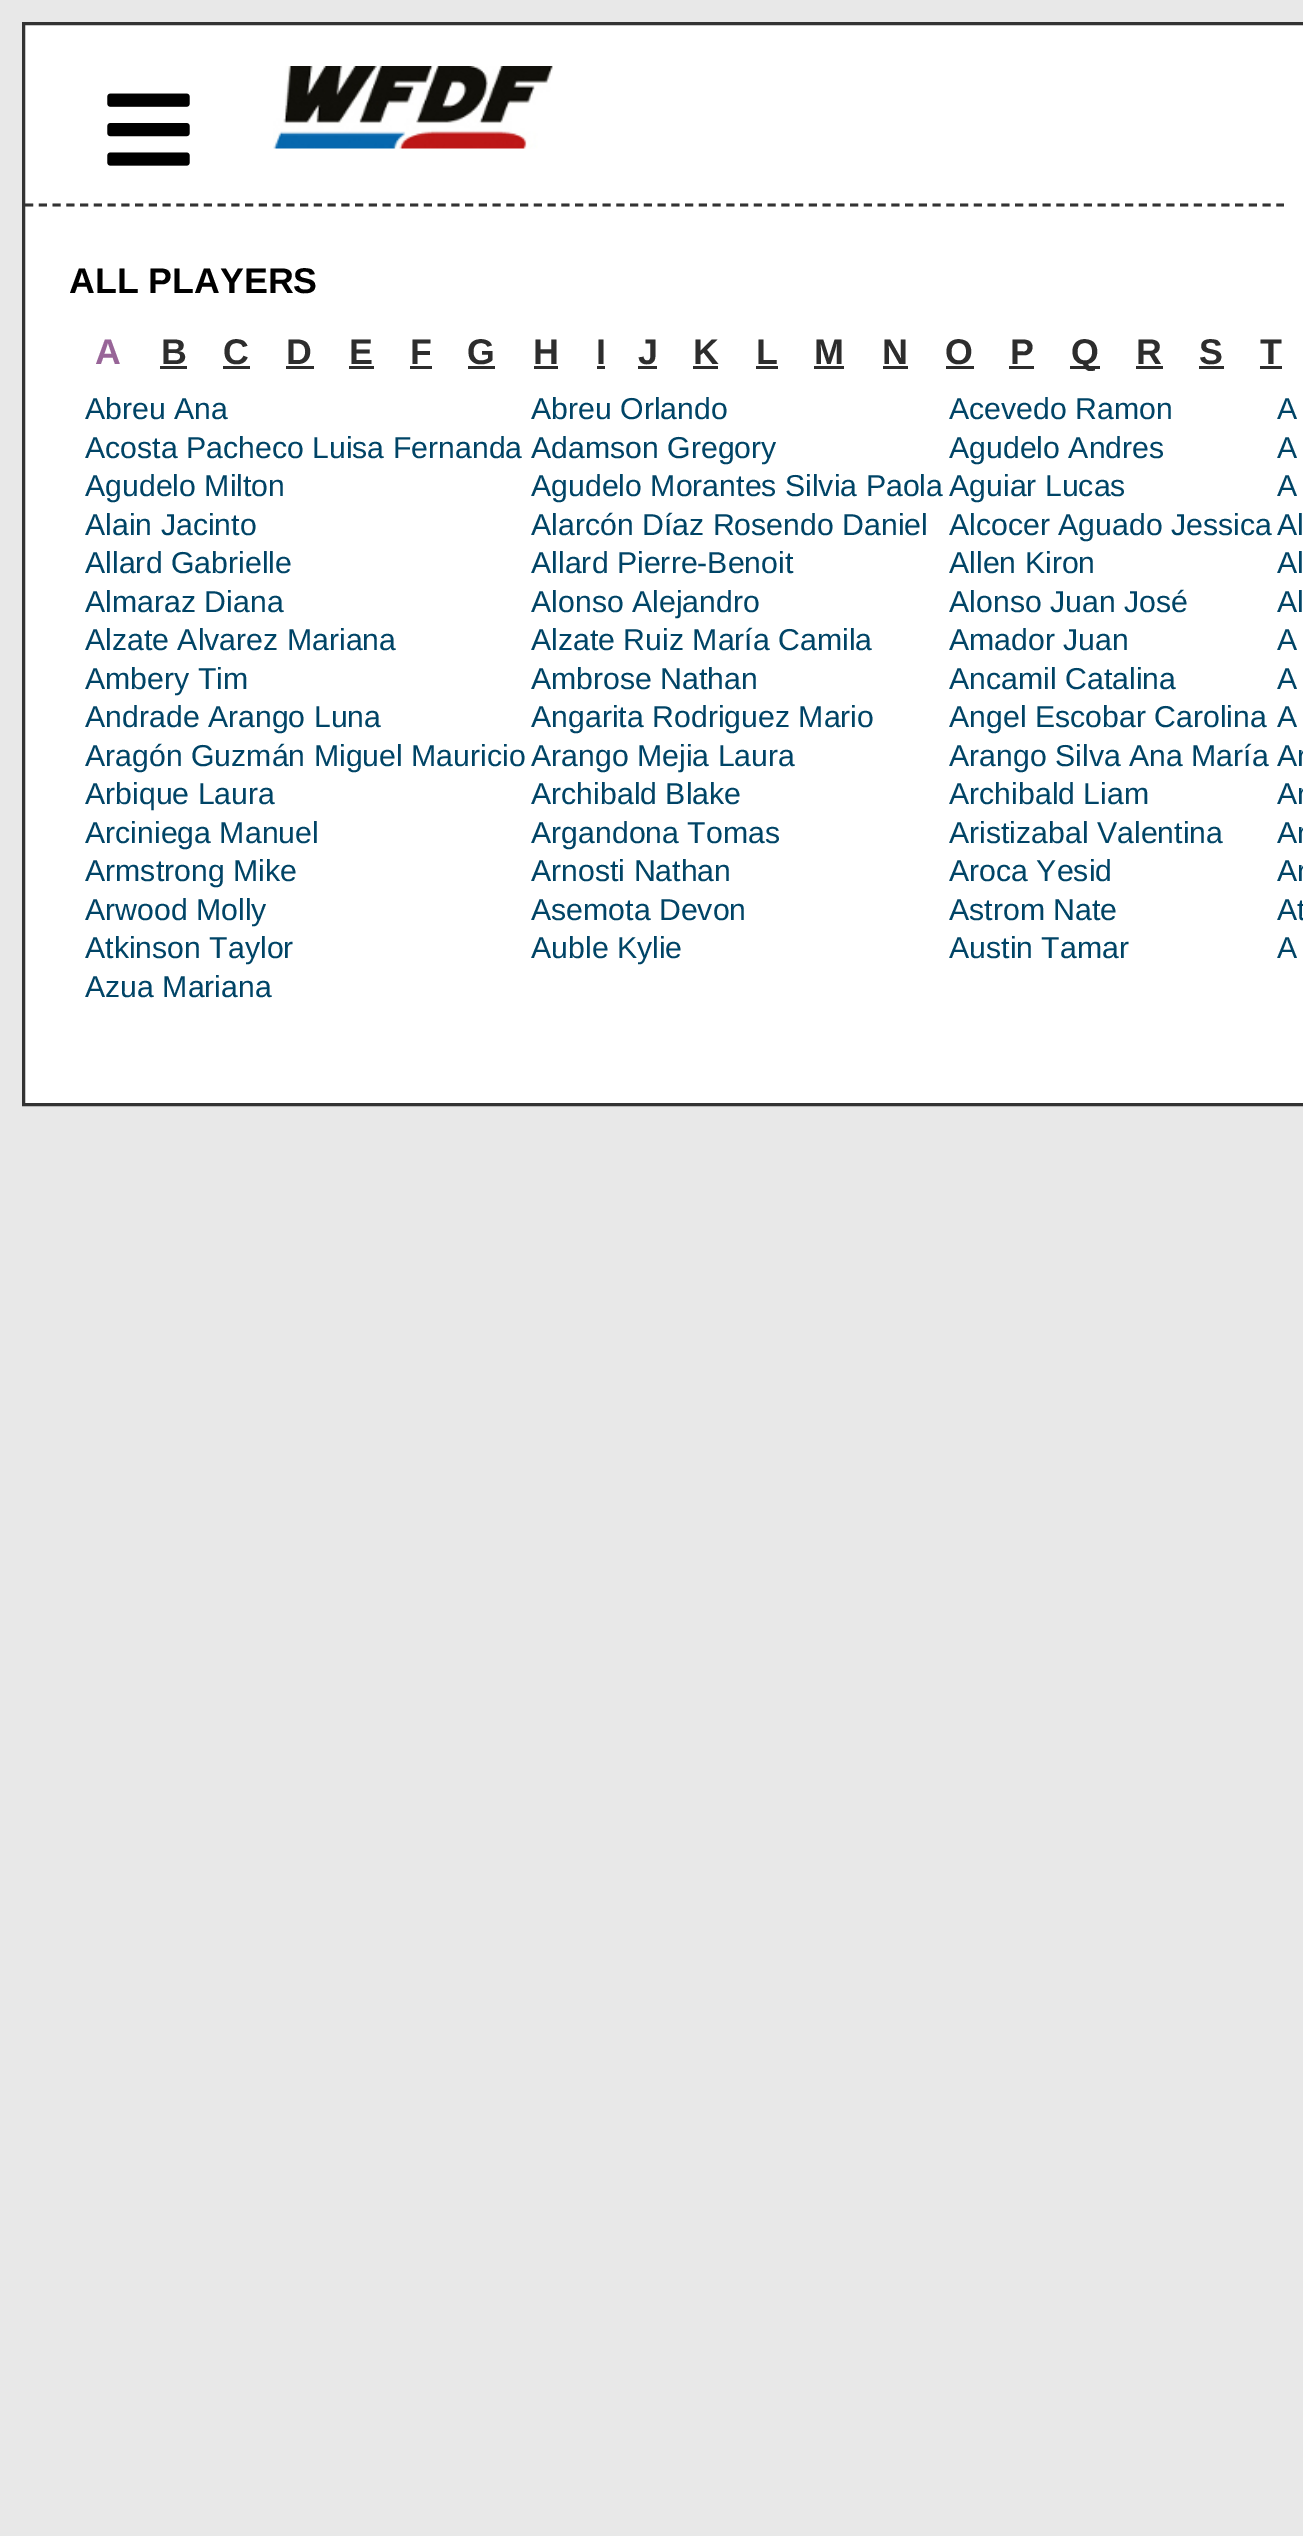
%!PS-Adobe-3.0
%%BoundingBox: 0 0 1303 2536
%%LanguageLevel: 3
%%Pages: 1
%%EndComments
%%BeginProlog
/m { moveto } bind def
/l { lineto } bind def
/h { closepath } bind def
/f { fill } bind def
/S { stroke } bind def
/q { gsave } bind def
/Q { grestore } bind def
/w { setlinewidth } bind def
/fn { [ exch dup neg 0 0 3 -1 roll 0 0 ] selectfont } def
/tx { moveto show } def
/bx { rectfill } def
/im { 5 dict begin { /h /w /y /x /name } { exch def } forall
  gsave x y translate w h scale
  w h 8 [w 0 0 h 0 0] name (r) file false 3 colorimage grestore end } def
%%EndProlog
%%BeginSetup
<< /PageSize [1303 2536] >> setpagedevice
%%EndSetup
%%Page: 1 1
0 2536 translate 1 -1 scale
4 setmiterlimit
0.91 setgray
0 0 1303 2536 bx
1 setgray
23.5 23.5 m 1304.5 23.5 l 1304.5 1104.5 l 23.5 1104.5 l h q f Q
0.2 setgray
3 w
S
2.8 w
[8.25 5.5] 0 setdash
25 205 m 1284 205 l S
(image0.raw) 107 93 83 73 im
(image1.raw) 273 66 280 83 im
/LiberationSans-Bold 35.75 fn
0 setgray
(ALL PLAYERS) 69 293 tx
0.596 0.396 0.596 setrgbcolor
(A) 95 364 tx
0.176 setgray
(B) 161 364 tx
160 366 27 3 bx
(C) 223 364 tx
223 366 27 3 bx
(D) 286 364 tx
286 366 28 3 bx
(E) 349 364 tx
349 366 25 3 bx
(F) 410 364 tx
410 366 22 3 bx
(G) 467 364 tx
468 366 27 3 bx
(H) 533 364 tx
534 366 24 3 bx
(I) 596 364 tx
597 366 8 3 bx
(J) 638 364 tx
638 366 19 3 bx
(K) 693 364 tx
693 366 25 3 bx
(L) 756 364 tx
756 366 22 3 bx
(M) 814 364 tx
814 366 30 3 bx
(N) 882 364 tx
883 366 25 3 bx
(O) 945 364 tx
946 366 28 3 bx
(P) 1010 364 tx
1009 366 25 3 bx
1070 366 30 3 bx
(Q) 1071 364 tx
(R) 1136 364 tx
1136 366 27 3 bx
(S) 1199 364 tx
1199 366 25 3 bx
(T) 1260 364 tx
1260 366 22 3 bx
/LiberationSans-Regular 30.25 fn
0 0.267 0.4 setrgbcolor
(Abreu Ana) 85 419 tx
(Abreu Orlando) 531 419 tx
(Acevedo Ramon) 949 419 tx
(A) 1277 419 tx
(Acosta Pacheco Luisa Fernanda) 85 458 tx
(Adamson Gregory) 531 458 tx
(Agudelo Andres) 949 458 tx
(A) 1277 458 tx
(Agudelo Milton) 85 496 tx
(Agudelo Morantes Silvia Paola) 531 496 tx
(Aguiar Lucas) 949 496 tx
(A) 1277 496 tx
(Alain Jacinto) 85 535 tx
(Alarcón Díaz Rosendo Daniel) 531 535 tx
(Alcocer Aguado Jessica) 949 535 tx
(Al) 1277 535 tx
(Allard Gabrielle) 85 573 tx
(Allard Pierre-Benoit) 531 573 tx
(Allen Kiron) 949 573 tx
(Al) 1277 573 tx
(Almaraz Diana) 85 612 tx
(Alonso Alejandro) 531 612 tx
(Alonso Juan José) 949 612 tx
(Al) 1277 612 tx
(Alzate Alvarez Mariana) 85 650 tx
(Alzate Ruiz María Camila) 531 650 tx
(Amador Juan) 949 650 tx
(A) 1277 650 tx
(Ambery Tim) 85 689 tx
(Ambrose Nathan) 531 689 tx
(Ancamil Catalina) 949 689 tx
(A) 1277 689 tx
(Andrade Arango Luna) 85 727 tx
(Angarita Rodriguez Mario) 531 727 tx
(Angel Escobar Carolina) 949 727 tx
(A) 1277 727 tx
(Aragón Guzmán Miguel Mauricio) 85 766 tx
(Arango Mejia Laura) 531 766 tx
(Arango Silva Ana María) 949 766 tx
(Ar) 1277 766 tx
(Arbique Laura) 85 804 tx
(Archibald Blake) 531 804 tx
(Archibald Liam) 949 804 tx
(Ar) 1277 804 tx
(Arciniega Manuel) 85 843 tx
(Argandona Tomas) 531 843 tx
(Aristizabal Valentina) 949 843 tx
(Ar) 1277 843 tx
(Armstrong Mike) 85 881 tx
(Arnosti Nathan) 531 881 tx
(Aroca Yesid) 949 881 tx
(Ar) 1277 881 tx
(Arwood Molly) 85 920 tx
(Asemota Devon) 531 920 tx
(Astrom Nate) 949 920 tx
(At) 1277 920 tx
(Atkinson Taylor) 85 958 tx
(Auble Kylie) 531 958 tx
(Austin Tamar) 949 958 tx
(A) 1277 958 tx
(Azua Mariana) 85 997 tx
showpage
%%EOF
